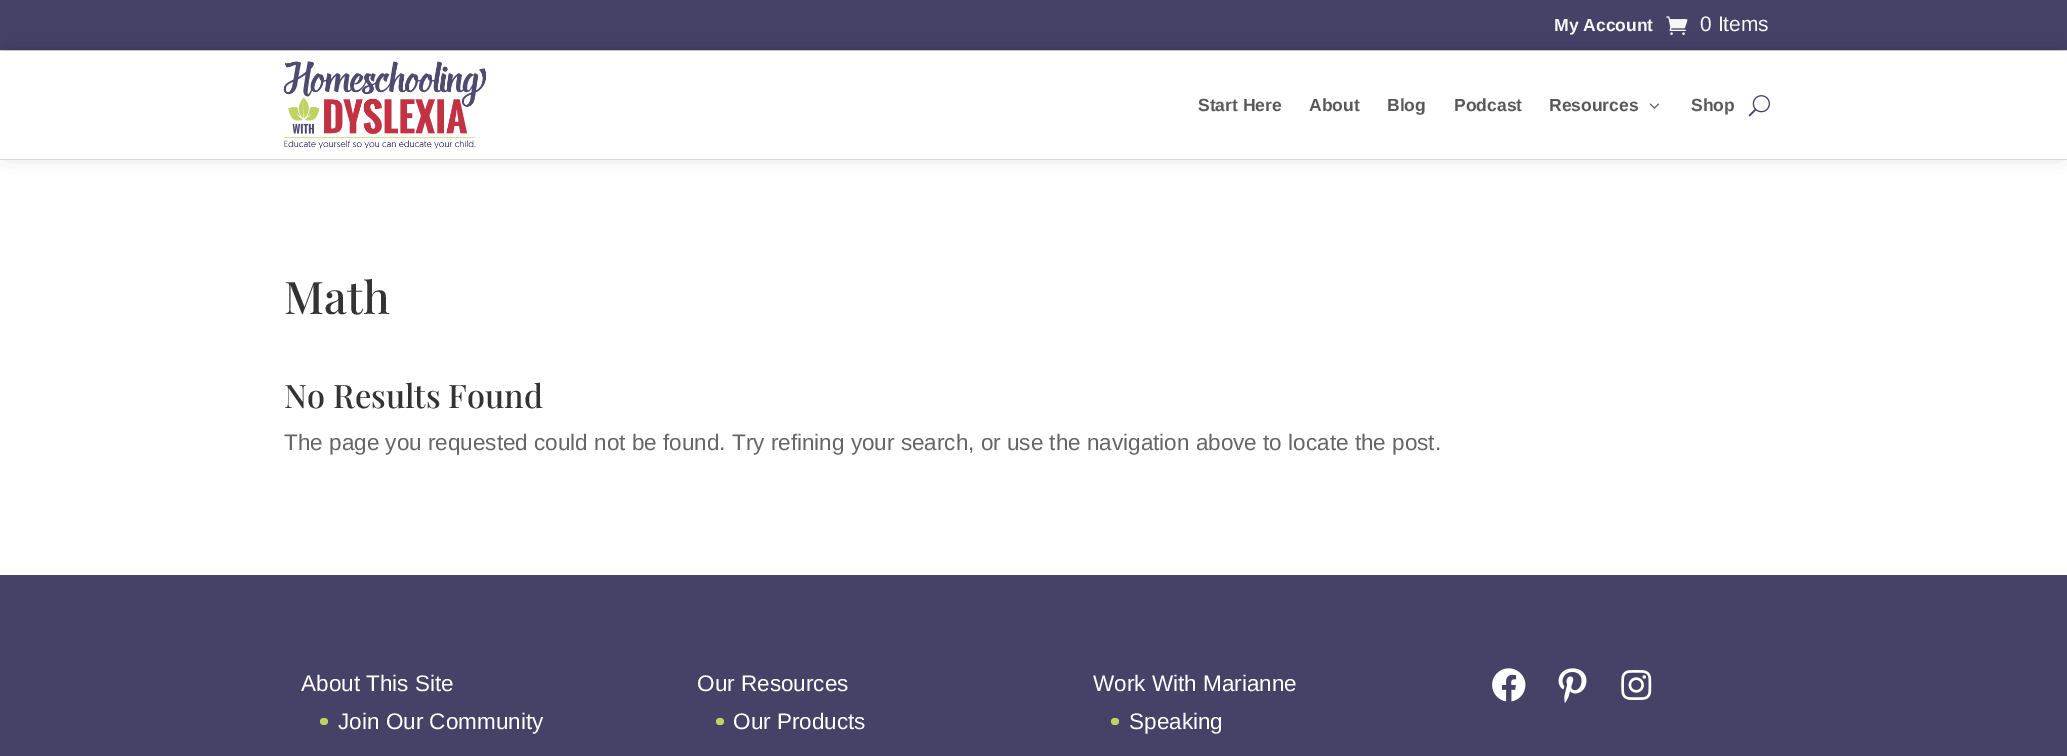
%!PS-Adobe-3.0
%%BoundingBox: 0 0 2067 756
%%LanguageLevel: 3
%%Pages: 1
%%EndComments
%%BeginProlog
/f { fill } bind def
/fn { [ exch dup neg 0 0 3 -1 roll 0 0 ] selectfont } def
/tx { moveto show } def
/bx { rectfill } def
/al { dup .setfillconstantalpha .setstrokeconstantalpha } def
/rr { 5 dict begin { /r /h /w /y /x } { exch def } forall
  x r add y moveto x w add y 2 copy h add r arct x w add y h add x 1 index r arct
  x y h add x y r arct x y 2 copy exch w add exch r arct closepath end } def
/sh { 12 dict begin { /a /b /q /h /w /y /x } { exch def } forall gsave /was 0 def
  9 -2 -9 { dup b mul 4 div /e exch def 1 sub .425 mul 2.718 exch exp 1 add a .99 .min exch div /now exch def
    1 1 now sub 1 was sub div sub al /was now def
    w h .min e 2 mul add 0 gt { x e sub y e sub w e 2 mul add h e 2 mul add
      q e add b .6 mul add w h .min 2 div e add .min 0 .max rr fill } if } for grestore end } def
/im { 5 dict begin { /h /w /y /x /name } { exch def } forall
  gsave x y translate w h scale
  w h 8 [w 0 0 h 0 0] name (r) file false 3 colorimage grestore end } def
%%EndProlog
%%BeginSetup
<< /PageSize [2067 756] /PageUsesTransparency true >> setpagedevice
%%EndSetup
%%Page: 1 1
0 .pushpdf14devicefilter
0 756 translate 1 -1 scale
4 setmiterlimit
1 setgray
0 0 2067 756 bx
0.271 0.255 0.404 setrgbcolor
0 0 2067 50 bx
0.839 setgray
0 50 2067 1 bx
/LiberationSans-Bold 17.5 fn
0.969 setgray
(My Account) 1554 31 tx
(image0.raw) 1666 16 22 19 im
/LiberationSans-Regular 21 fn
(0 Items) 1700 31 tx
0 setgray
8 56 2052 94 0 11 0.3 sh
1 setgray
0 51 2067 108 bx
0.839 setgray
0 159 2067 1 bx
(image1.raw) 283 61 204 88 im
/LiberationSans-Bold 17.5 fn
0.349 setgray
(Start Here) 1198 111 tx
(About) 1309 111 tx
(Blog) 1387 111 tx
(Podcast) 1454 111 tx
(Resources) 1549 111 tx
(image2.raw) 1649 103 10 6 im
(Shop) 1691 111 tx
(image3.raw) 1748 95 22 22 im
/PlayfairDisplay-Medium 45 fn
0.2 setgray
(Math) 284 314 tx
/PlayfairDisplay-Medium 32.5 fn
(No Results Found) 284 408 tx
/LiberationSans-Regular 22.5 fn
0.4 setgray
(The page you requested could not be found. Try refining your search, or use the navigation above to locate the post.) 284 450 tx
0.271 0.255 0.404 setrgbcolor
0 575 2067 181 bx
1 setgray
(About This Site) 301 691 tx
0.745 0.824 0.384 setrgbcolor
320 718 8 7 3.5 rr f
1 setgray
(Join Our Community) 338 729 tx
(Our Resources) 697 691 tx
0.745 0.824 0.384 setrgbcolor
716 718 8 7 3.5 rr f
1 setgray
(Our Products) 733 729 tx
(Work With Marianne) 1093 691 tx
0.745 0.824 0.384 setrgbcolor
1111 718 8 7 3.5 rr f
1 setgray
(Speaking) 1129 729 tx
(image4.raw) 1492 668 34 34 im
(image5.raw) 1558 668 29 35 im
(image6.raw) 1621 670 31 30 im
.poppdf14devicefilter showpage
%%EOF
